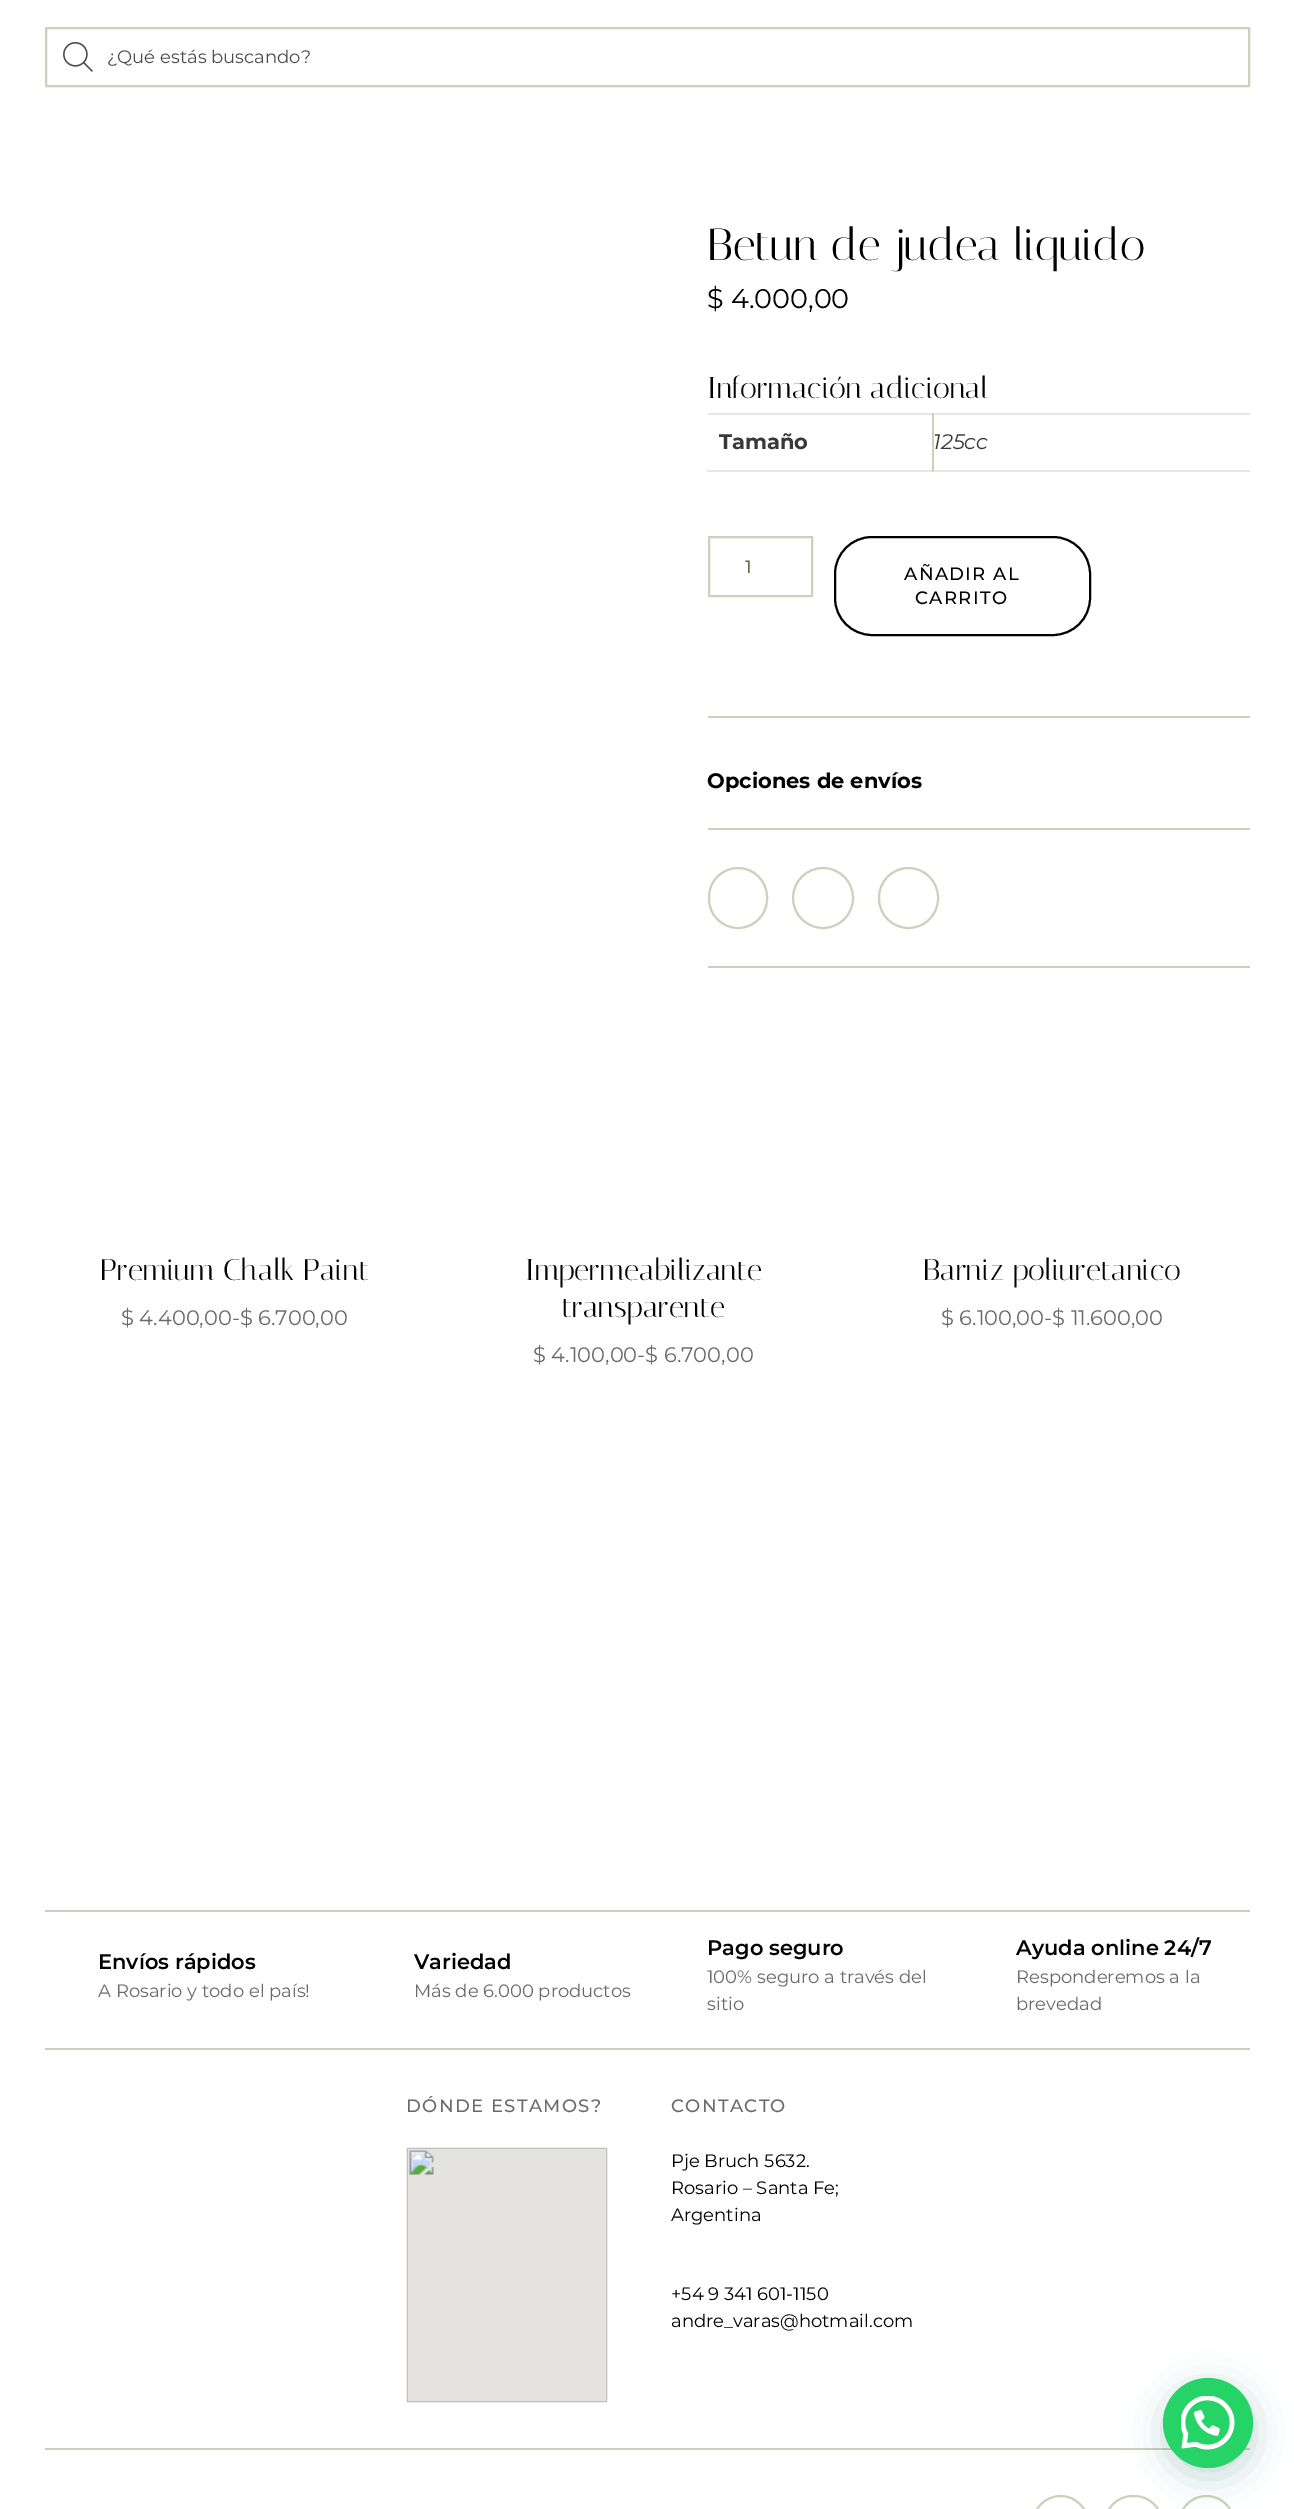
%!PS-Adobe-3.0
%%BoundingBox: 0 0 1294 2509
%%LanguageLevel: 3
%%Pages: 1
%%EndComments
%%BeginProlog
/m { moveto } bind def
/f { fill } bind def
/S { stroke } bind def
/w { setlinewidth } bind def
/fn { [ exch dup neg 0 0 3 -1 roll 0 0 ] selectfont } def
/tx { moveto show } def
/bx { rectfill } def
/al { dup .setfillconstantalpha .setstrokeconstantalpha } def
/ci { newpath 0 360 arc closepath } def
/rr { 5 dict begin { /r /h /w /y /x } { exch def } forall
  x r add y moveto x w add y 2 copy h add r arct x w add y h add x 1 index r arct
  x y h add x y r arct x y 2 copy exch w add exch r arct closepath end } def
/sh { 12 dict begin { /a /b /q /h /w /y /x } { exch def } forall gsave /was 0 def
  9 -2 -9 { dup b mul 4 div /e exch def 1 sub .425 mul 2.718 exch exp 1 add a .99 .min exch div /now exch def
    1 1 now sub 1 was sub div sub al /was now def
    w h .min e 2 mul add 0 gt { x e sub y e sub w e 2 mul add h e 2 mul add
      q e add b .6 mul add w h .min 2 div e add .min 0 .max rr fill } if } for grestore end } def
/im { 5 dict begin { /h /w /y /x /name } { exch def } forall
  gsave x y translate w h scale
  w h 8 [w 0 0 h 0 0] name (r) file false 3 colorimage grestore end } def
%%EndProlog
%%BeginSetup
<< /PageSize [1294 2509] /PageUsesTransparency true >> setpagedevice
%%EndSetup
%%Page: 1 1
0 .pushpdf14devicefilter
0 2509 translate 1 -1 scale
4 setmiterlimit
1 setgray
0 0 1294 2509 bx
0.902 setgray
707 470 543 2 bx
0.808 0.816 0.733 setrgbcolor
2 w
46 28 1203 58 rectstroke
(image0.raw) 63 42 30 30 im
/Montserrat-Regular 18 fn
0.302 setgray
(¿Qué estás buscando?) 107 63 tx
/Italiana-Regular 45 fn
0 setgray
(Betun de judea liquido) 707 260 tx
/Montserrat-Regular 27 fn
($ 4.000,00) 707 308 tx
/Italiana-Regular 30 fn
(Información adicional) 707 398 tx
0.902 setgray
708 413 542 2 bx
/Montserrat-Bold 21 fn
0.22 setgray
(Tamaño) 719 449 tx
0.812 setgray
932 470 1 2 bx
0.808 0.816 0.733 setrgbcolor
932 413 2 58 bx
0.725 0.733 0.659 setrgbcolor
932 470 1 1 bx
/Montserrat-Italic 21 fn
0.22 setgray
(125cc) 933 449 tx
0.808 0.816 0.733 setrgbcolor
708 716 542 2 bx
709 537 103 59 rectstroke
/Montserrat-Medium 18 fn
0.416 0.431 0.286 setrgbcolor
745 573 m 1.4 0 (1) ashow
0 setgray
835 537 255 98 37 rr S
904 580 m 1.4 0 (AÑADIR AL) ashow
915 604 m 1.4 0 (CARRITO) ashow
0.808 0.816 0.733 setrgbcolor
708 828 542 2 bx
/Montserrat-Bold 21 fn
0 setgray
(Opciones de envíos) 707 788 tx
0.808 0.816 0.733 setrgbcolor
708 966 542 2 bx
709 868 58 60 29 rr S
823 898 30 ci S
879 868 59 60 29.5 rr S
/Italiana-Regular 30 fn
0 setgray
(Premium Chalk Paint) 100 1280 tx
/Montserrat-Regular 21 fn
0.416 setgray
($ 4.400,00-$ 6.700,00) 121 1325 tx
/Italiana-Regular 30 fn
0 setgray
(Impermeabilizante) 525 1280 tx
(transparente) 562 1317 tx
/Montserrat-Regular 21 fn
0.416 setgray
($ 4.100,00-$ 6.700,00) 533 1362 tx
/Italiana-Regular 30 fn
0 setgray
(Barniz poliuretanico) 923 1280 tx
/Montserrat-Regular 21 fn
0.416 setgray
($ 6.100,00-$ 11.600,00) 941 1325 tx
0.808 0.816 0.733 setrgbcolor
45 1910 1205 2 bx
45 2048 1205 2 bx
/Montserrat-SemiBold 21 fn
0 setgray
(Envíos rápidos) 98 1969 tx
/Montserrat-Regular 18 fn
0.416 setgray
(A Rosario y todo el país!) 98 1997 tx
/Montserrat-SemiBold 21 fn
0 setgray
(Variedad) 414 1969 tx
/Montserrat-Regular 18 fn
0.416 setgray
(Más de 6.000 productos) 414 1997 tx
/Montserrat-SemiBold 21 fn
0 setgray
(Pago seguro) 707 1955 tx
/Montserrat-Regular 18 fn
0.416 setgray
(100% seguro a través del) 707 1983 tx
(sitio) 707 2010 tx
/Montserrat-SemiBold 21 fn
0 setgray
(Ayuda online 24/7) 1016 1955 tx
/Montserrat-Regular 18 fn
0.416 setgray
(Responderemos a la) 1016 1983 tx
(brevedad) 1016 2010 tx
/Montserrat-Medium 18 fn
406 2112 m 1.4 0 (DÓNDE ESTAMOS?) ashow
(image1.raw) 406 2147 202 256 im
671 2112 m 1.4 0 (CONTACTO) ashow
/Montserrat-Regular 18 fn
0 setgray
(Pje Bruch 5632.) 671 2167 tx
(Rosario – Santa Fe;) 671 2194 tx
(Argentina) 671 2221 tx
(+54 9 341 601-1150) 671 2300 tx
(andre_varas@hotmail.com) 671 2327 tx
0.808 0.816 0.733 setrgbcolor
45 2448 1205 2 bx
1033 2496 55 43 27.5 rr S
1105 2496 57 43 27.5 rr S
1179 2496 55 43 27.5 rr S
0.027 0.369 0.329 setrgbcolor
1164 2387 90 90 45 18 0.24 sh
0.145 0.827 0.4 setrgbcolor
1208 2423 45 ci f
(image2.raw) 1181 2396 54 54 im
.poppdf14devicefilter showpage
%%EOF
